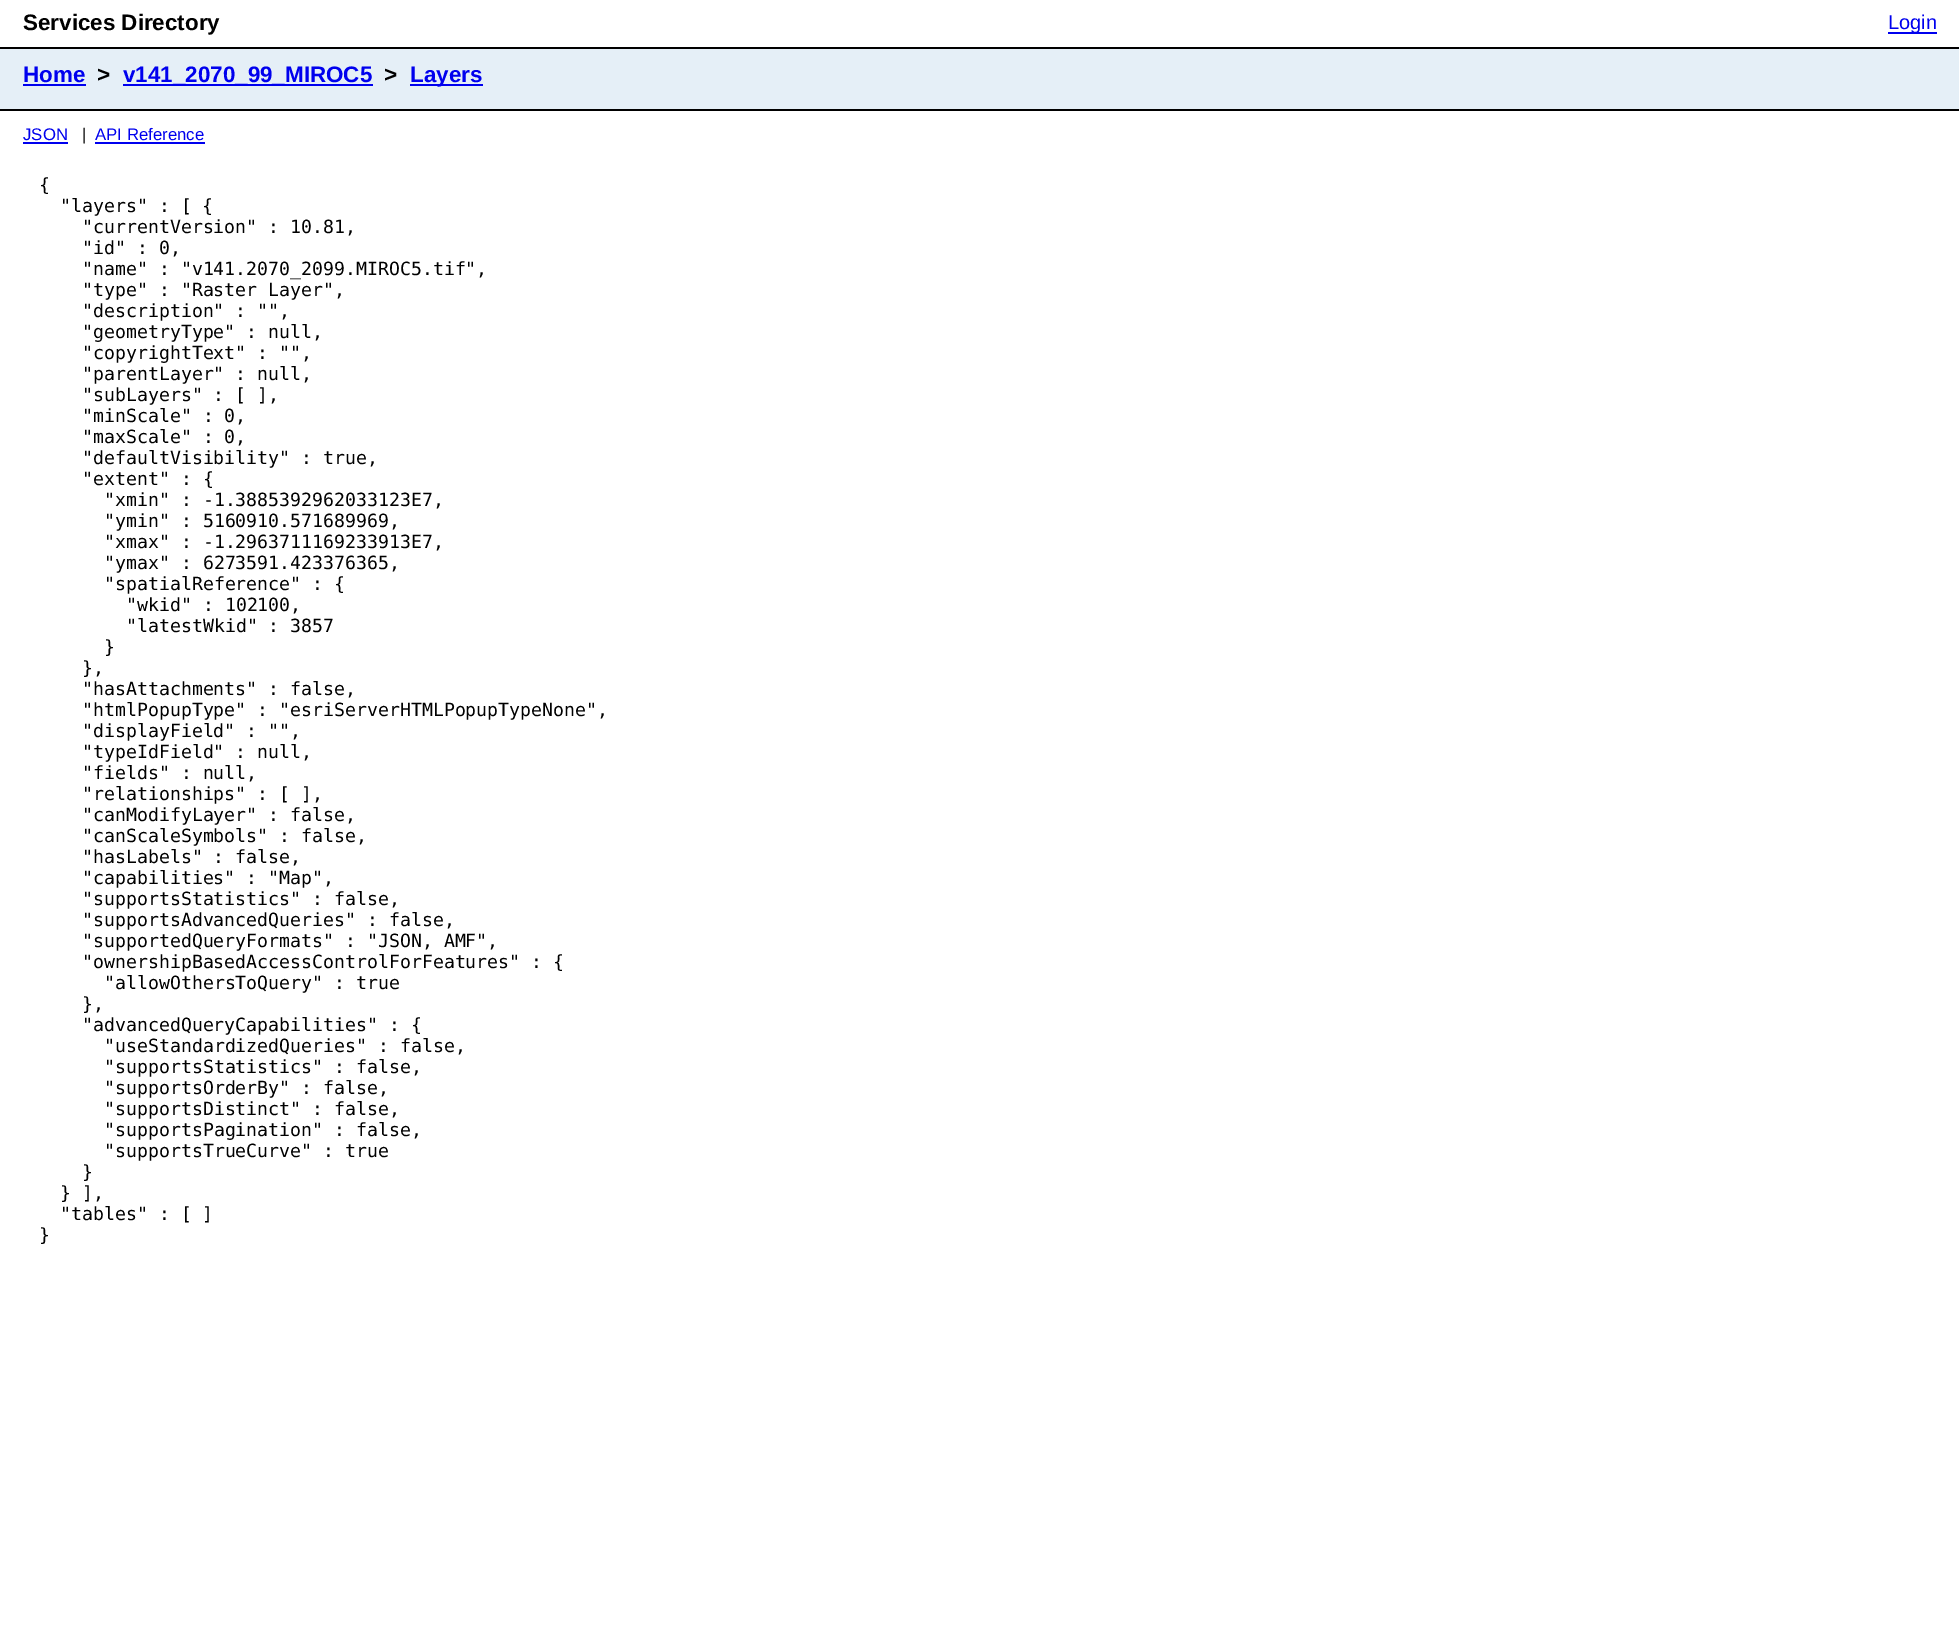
%!PS-Adobe-3.0
%%BoundingBox: 0 0 1959 1633
%%LanguageLevel: 3
%%Pages: 1
%%EndComments
%%BeginProlog
/fn { [ exch dup neg 0 0 3 -1 roll 0 0 ] selectfont } def
/tx { moveto show } def
/bx { rectfill } def
%%EndProlog
%%BeginSetup
<< /PageSize [1959 1633] >> setpagedevice
%%EndSetup
%%Page: 1 1
0 1633 translate 1 -1 scale
4 setmiterlimit
1 setgray
0 0 1959 1633 bx
/LiberationSans-Bold 22.4 fn
0 setgray
(Services Directory) 23 30 tx
0 0 0.933 setrgbcolor
1888 32 49 2 bx
/LiberationSans-Regular 20 fn
(Login) 1888 29 tx
0.898 0.937 0.969 setrgbcolor
0 49 1959 60 bx
0 setgray
0 47 1959 2 bx
0 109 1959 2 bx
/LiberationSans-Bold 22.4 fn
0 0 0.933 setrgbcolor
(Home) 23 82 tx
23 84 63 2 bx
0 setgray
(>) 97 82 tx
0 0 0.933 setrgbcolor
123 84 250 2 bx
(v141_2070_99_MIROC5) 123 82 tx
0 setgray
(>) 384 82 tx
0 0 0.933 setrgbcolor
410 84 73 2 bx
(Layers) 410 82 tx
/LiberationSans-Regular 16.75 fn
(JSON) 23 140 tx
23 142 45 2 bx
0 setgray
(|) 82 140 tx
0 0 0.933 setrgbcolor
(API Reference) 95 140 tx
95 142 110 2 bx
/DejaVuSansMono-Regular 18.2 fn
0 setgray
({) 39 191 tx
("layers" : [ {) 60 212 tx
("currentVersion" : 10.81,) 82 233 tx
("id" : 0,) 82 254 tx
("name" : "v141.2070_2099.MIROC5.tif",) 82 275 tx
("type" : "Raster Layer",) 82 296 tx
("description" : "",) 82 317 tx
("geometryType" : null,) 82 338 tx
("copyrightText" : "",) 82 359 tx
("parentLayer" : null,) 82 380 tx
("subLayers" : [ ],) 82 401 tx
("minScale" : 0,) 82 422 tx
("maxScale" : 0,) 82 443 tx
("defaultVisibility" : true,) 82 464 tx
("extent" : {) 82 485 tx
("xmin" : -1.3885392962033123E7,) 104 506 tx
("ymin" : 5160910.571689969,) 104 527 tx
("xmax" : -1.2963711169233913E7,) 104 548 tx
("ymax" : 6273591.423376365,) 104 569 tx
("spatialReference" : {) 104 590 tx
("wkid" : 102100,) 126 611 tx
("latestWkid" : 3857) 126 632 tx
(}) 104 653 tx
(},) 82 674 tx
("hasAttachments" : false,) 82 695 tx
("htmlPopupType" : "esriServerHTMLPopupTypeNone",) 82 716 tx
("displayField" : "",) 82 737 tx
("typeIdField" : null,) 82 758 tx
("fields" : null,) 82 779 tx
("relationships" : [ ],) 82 800 tx
("canModifyLayer" : false,) 82 821 tx
("canScaleSymbols" : false,) 82 842 tx
("hasLabels" : false,) 82 863 tx
("capabilities" : "Map",) 82 884 tx
("supportsStatistics" : false,) 82 905 tx
("supportsAdvancedQueries" : false,) 82 926 tx
("supportedQueryFormats" : "JSON, AMF",) 82 947 tx
("ownershipBasedAccessControlForFeatures" : {) 82 968 tx
("allowOthersToQuery" : true) 104 989 tx
(},) 82 1010 tx
("advancedQueryCapabilities" : {) 82 1031 tx
("useStandardizedQueries" : false,) 104 1052 tx
("supportsStatistics" : false,) 104 1073 tx
("supportsOrderBy" : false,) 104 1094 tx
("supportsDistinct" : false,) 104 1115 tx
("supportsPagination" : false,) 104 1136 tx
("supportsTrueCurve" : true) 104 1157 tx
(}) 82 1178 tx
(} ],) 60 1199 tx
("tables" : [ ]) 60 1220 tx
(}) 39 1241 tx
showpage
%%EOF
